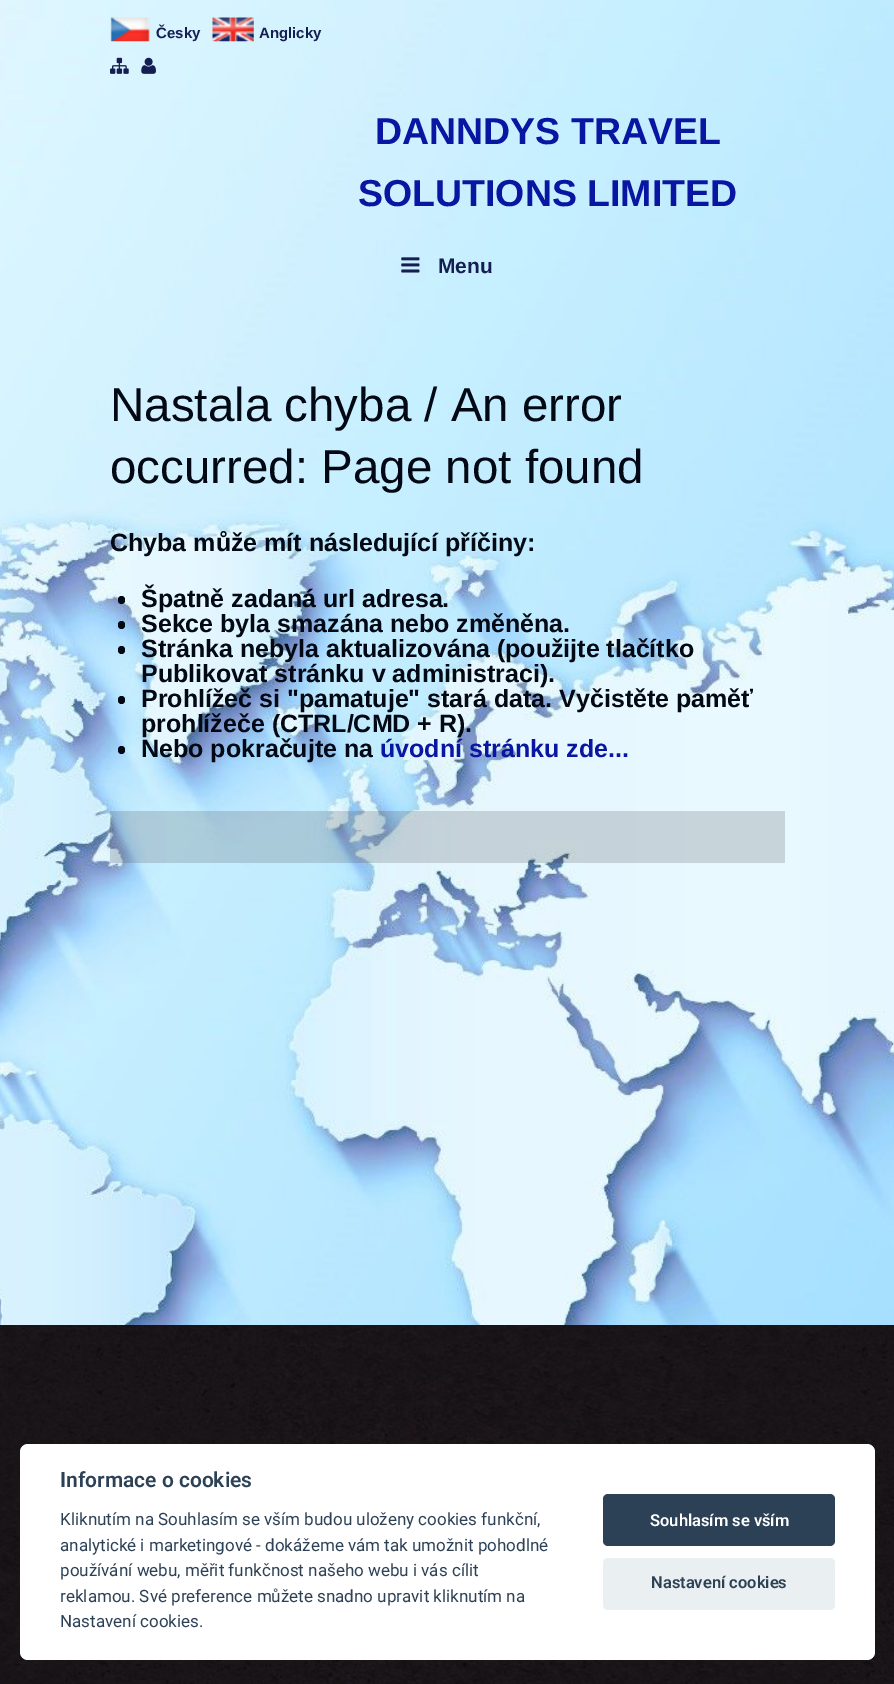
%!PS-Adobe-3.0
%%BoundingBox: 0 0 894 1684
%%LanguageLevel: 3
%%Pages: 1
%%EndComments
%%BeginProlog
/f { fill } bind def
/fn { [ exch dup neg 0 0 3 -1 roll 0 0 ] selectfont } def
/tx { moveto show } def
/bx { rectfill } def
/al { dup .setfillconstantalpha .setstrokeconstantalpha } def
/rr { 5 dict begin { /r /h /w /y /x } { exch def } forall
  x r add y moveto x w add y 2 copy h add r arct x w add y h add x 1 index r arct
  x y h add x y r arct x y 2 copy exch w add exch r arct closepath end } def
/im { 5 dict begin { /h /w /y /x /name } { exch def } forall
  gsave x y translate w h scale
  w h 8 [w 0 0 h 0 0] name (r) file false 3 colorimage grestore end } def
%%EndProlog
%%BeginSetup
<< /PageSize [894 1684] /PageUsesTransparency true >> setpagedevice
%%EndSetup
%%Page: 1 1
0 .pushpdf14devicefilter
0 1684 translate 1 -1 scale
4 setmiterlimit
1 setgray
0 0 894 1684 bx
(image0.raw) 0 1325 894 359 im
(image1.raw) 0 0 894 1325 im
(image2.raw) 110 17 41 25 im
/LiberationSans-Bold 15 fn
0.082 0.118 0.322 setrgbcolor
(Česky) 156 38 tx
(image3.raw) 212 17 42 25 im
(Anglicky) 259 38 tx
(image4.raw) 110 57 19 17 im
(image5.raw) 141 57 15 17 im
/LiberationSans-Bold 37.5 fn
0.035 0.086 0.631 setrgbcolor
(DANNDYS TRAVEL) 375 144 tx
(SOLUTIONS LIMITED) 358 206 tx
(image6.raw) 401 257 19 16 im
/LiberationSans-Bold 21 fn
0.082 0.118 0.322 setrgbcolor
(Menu) 438 273 tx
/LiberationSans-Regular 47.5 fn
0.008 0.035 0.078 setrgbcolor
(Nastala chyba / An error) 110 421 tx
(occurred: Page not found) 110 483 tx
/LiberationSans-Bold 25 fn
(Chyba může mít následující příčiny:) 110 551 tx
118 596 7 8 3.5 rr f
(Špatně zadaná url adresa.) 141 607 tx
118 621 7 8 3.5 rr f
(Sekce byla smazána nebo změněna.) 141 632 tx
118 646 7 8 3.5 rr f
(Stránka nebyla aktualizována \(použijte tlačítko) 141 657 tx
(Publikovat stránku v administraci\).) 141 682 tx
118 696 7 8 3.5 rr f
(Prohlížeč si "pamatuje" stará data. Vyčistěte paměť) 141 707 tx
(prohlížeče \(CTRL/CMD + R\).) 141 732 tx
118 746 7 8 3.5 rr f
(Nebo pokračujte na) 141 757 tx
0.035 0.086 0.631 setrgbcolor
(úvodní stránku zde...) 380 757 tx
0.19 al
0.227 0.208 0.227 setrgbcolor
110 811 675 52 bx
1 al
1 setgray
20 1444 855 216 8 rr f
/Roboto-SemiBold 21 fn
0.176 0.255 0.337 setrgbcolor
(Informace o cookies) 60 1487 tx
/Roboto-Regular 17 fn
(Kliknutím na Souhlasím se vším budou uloženy cookies funkční,) 60 1525 tx
(analytické i marketingové - dokážeme vám tak umožnit pohodlné) 60 1551 tx
(používání webu, měřit funkčnost našeho webu i vás cílit) 60 1576 tx
(reklamou. Své preference můžete snadno upravit kliknutím na) 60 1602 tx
(Nastavení cookies.) 60 1627 tx
603 1494 232 52 5 rr f
/Roboto-SemiBold 16.5 fn
1 setgray
(Souhlasím se vším) 650 1526 tx
0.918 0.937 0.949 setrgbcolor
603 1558 232 52 5 rr f
0.176 0.255 0.337 setrgbcolor
(Nastavení cookies) 651 1588 tx
.poppdf14devicefilter showpage
%%EOF
